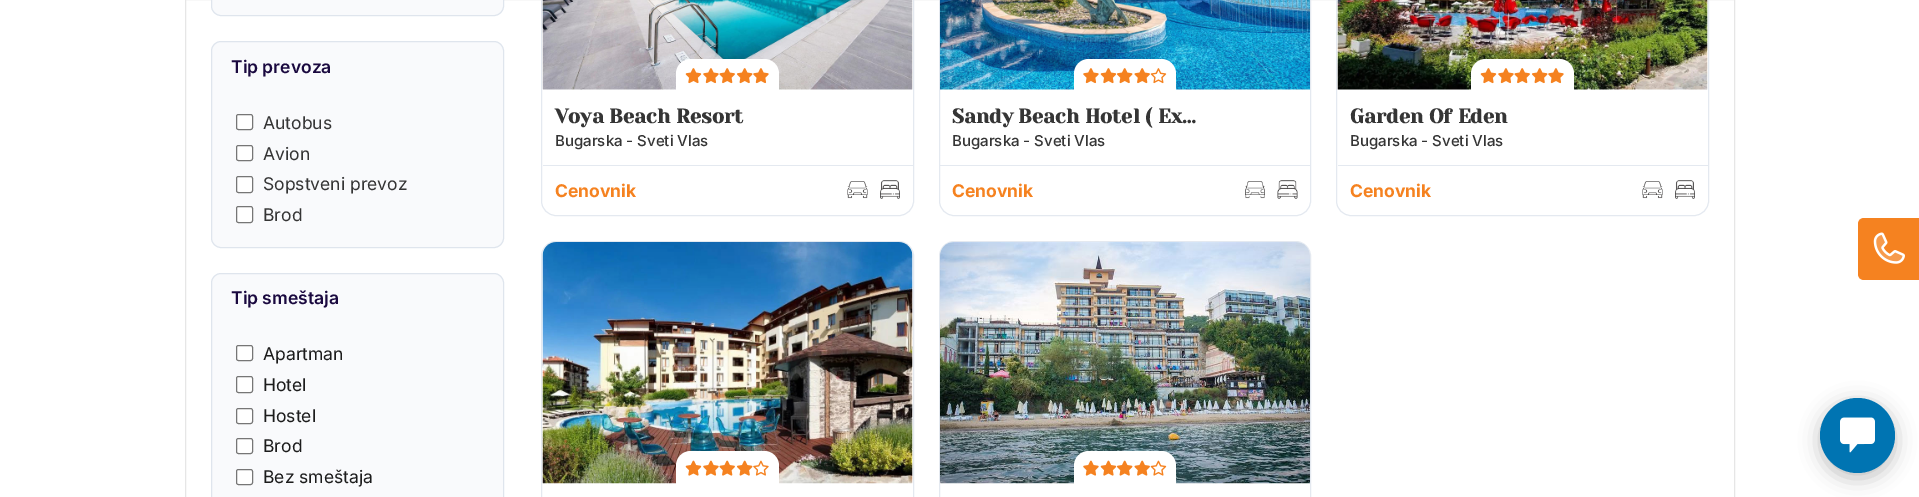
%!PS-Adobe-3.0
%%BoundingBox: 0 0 1919 497
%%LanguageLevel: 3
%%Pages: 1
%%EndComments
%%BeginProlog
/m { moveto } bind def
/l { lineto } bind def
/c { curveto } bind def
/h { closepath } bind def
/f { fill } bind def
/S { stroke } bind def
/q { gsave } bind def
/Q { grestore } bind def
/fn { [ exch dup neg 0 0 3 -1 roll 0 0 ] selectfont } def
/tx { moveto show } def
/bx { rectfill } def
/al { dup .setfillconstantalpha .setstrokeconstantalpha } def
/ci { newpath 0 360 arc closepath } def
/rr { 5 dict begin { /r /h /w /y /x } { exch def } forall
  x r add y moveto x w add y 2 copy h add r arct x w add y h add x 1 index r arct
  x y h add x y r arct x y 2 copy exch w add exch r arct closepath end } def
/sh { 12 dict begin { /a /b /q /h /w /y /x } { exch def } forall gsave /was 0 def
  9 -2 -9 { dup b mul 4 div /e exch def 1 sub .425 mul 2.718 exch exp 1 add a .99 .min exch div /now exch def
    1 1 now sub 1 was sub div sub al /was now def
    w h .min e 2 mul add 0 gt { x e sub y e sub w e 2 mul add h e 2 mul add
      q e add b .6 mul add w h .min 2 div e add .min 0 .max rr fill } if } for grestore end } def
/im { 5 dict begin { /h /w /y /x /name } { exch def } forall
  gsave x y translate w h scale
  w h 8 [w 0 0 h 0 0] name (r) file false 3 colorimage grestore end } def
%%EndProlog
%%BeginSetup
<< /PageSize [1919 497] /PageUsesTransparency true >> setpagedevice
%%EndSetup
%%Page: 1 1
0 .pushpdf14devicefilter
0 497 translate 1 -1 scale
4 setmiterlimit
1 setgray
0 0 1919 497 bx
0.902 setgray
185.5 -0.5 1549 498 rectstroke
0.976 0.98 0.988 setrgbcolor
211 -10 293 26 10 rr f
0.2 al
0.463 0.565 0.698 setrgbcolor
211.5 -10.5 292 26 9.5 rr S
1 al
0.976 0.98 0.988 setrgbcolor
211 41 293 207 10 rr f
0.2 al
0.463 0.565 0.698 setrgbcolor
211.5 41.5 292 206 9.5 rr S
/Inter-SemiBold 17.5 fn
1 al
0.102 0.035 0.247 setrgbcolor
(Tip prevoza) 231 73 tx
1 setgray
236.5 114.5 16 15 2 rr q f Q
0.463 setgray
S
/Inter-Regular 17.5 fn
0.208 setgray
(Autobus) 263 129 tx
1 setgray
236.5 145.5 16 15 2 rr q f Q
0.463 setgray
S
0.208 setgray
(Avion) 263 160 tx
1 setgray
236.5 176.5 16 16 2 rr q f Q
0.463 setgray
S
0.208 setgray
(Sopstveni prevoz) 263 190 tx
1 setgray
236.5 206.5 16 16 2 rr q f Q
0.463 setgray
S
0.208 setgray
(Brod) 263 221 tx
0.976 0.98 0.988 setrgbcolor
211 273 293 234 10 rr f
0.2 al
0.463 0.565 0.698 setrgbcolor
211.5 273.5 292 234 9.5 rr S
/Inter-SemiBold 17.5 fn
1 al
0.102 0.035 0.247 setrgbcolor
(Tip smeštaja) 231 304 tx
1 setgray
236.5 345.5 16 15 2 rr q f Q
0.463 setgray
S
/Inter-Regular 17.5 fn
0.11 setgray
(Apartman) 263 360 tx
1 setgray
236.5 376.5 16 16 2 rr q f Q
0.463 setgray
S
0.11 setgray
(Hotel) 263 391 tx
1 setgray
236.5 408.5 16 15 2 rr q f Q
0.463 setgray
S
0.11 setgray
(Hostel) 263 422 tx
1 setgray
236.5 438.5 16 15 2 rr q f Q
0.463 setgray
S
0.11 setgray
(Brod) 263 452 tx
1 setgray
236.5 469.5 16 15 2 rr q f Q
0.463 setgray
S
0.11 setgray
(Bez smeštaja) 263 483 tx
0.894 0.914 0.941 setrgbcolor
541.5 -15.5 372 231 14.5 rr S
(image0.raw) 542 0 371 90 im
1 setgray
691 59 m 764 59 l 772.5 59 779 65.5 779 74 c 779 90 l 676 90 l 676 74 l 676 65.5 682.5 59 691 59 c h f
(image1.raw) 685 68 17 16 im
(image2.raw) 703 68 16 16 im
(image3.raw) 719 68 16 16 im
(image4.raw) 737 68 16 16 im
(image2.raw) 753 68 16 16 im
/YesevaOne-Bold 20 fn
0.208 setgray
(Voya Beach Resort) 555 123 tx
/Inter-Medium 15 fn
(Bugarska - Sveti Vlas) 555 146 tx
0.894 0.914 0.941 setrgbcolor
543 165 370 1 bx
/Inter-Bold 17.5 fn
0.961 0.51 0.125 setrgbcolor
(Cenovnik) 555 197 tx
(image5.raw) 847 181 21 18 im
(image6.raw) 880 180 20 19 im
0.894 0.914 0.941 setrgbcolor
939.5 -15.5 371 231 14.5 rr S
(image7.raw) 940 0 370 90 im
1 setgray
1089 59 m 1161 59 l 1169.5 59 1176 65.5 1176 74 c 1176 90 l 1074 90 l 1074 74 l 1074 65.5 1080.5 59 1089 59 c h f
(image2.raw) 1083 68 16 16 im
(image1.raw) 1100 68 17 16 im
(image4.raw) 1117 68 16 16 im
(image3.raw) 1134 68 16 16 im
(image8.raw) 1150 68 17 16 im
/YesevaOne-Bold 20 fn
0.208 setgray
(Sandy Beach Hotel \( Ex…) 952 123 tx
/Inter-Medium 15 fn
(Bugarska - Sveti Vlas) 952 146 tx
0.894 0.914 0.941 setrgbcolor
940 165 370 1 bx
/Inter-Bold 17.5 fn
0.961 0.51 0.125 setrgbcolor
(Cenovnik) 952 197 tx
(image9.raw) 1245 181 20 18 im
(image10.raw) 1277 180 21 19 im
0.894 0.914 0.941 setrgbcolor
1336.5 -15.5 372 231 14.5 rr S
(image11.raw) 1337 0 371 90 im
1 setgray
1486 59 m 1559 59 l 1567.5 59 1574 65.5 1574 74 c 1574 90 l 1471 90 l 1471 74 l 1471 65.5 1477.5 59 1486 59 c h f
(image1.raw) 1480 68 17 16 im
(image2.raw) 1498 68 16 16 im
(image3.raw) 1514 68 16 16 im
(image4.raw) 1532 68 16 16 im
(image2.raw) 1548 68 16 16 im
/YesevaOne-Bold 20 fn
0.208 setgray
(Garden Of Eden) 1350 123 tx
/Inter-Medium 15 fn
(Bugarska - Sveti Vlas) 1350 146 tx
0.894 0.914 0.941 setrgbcolor
1338 165 370 1 bx
/Inter-Bold 17.5 fn
0.961 0.51 0.125 setrgbcolor
(Cenovnik) 1350 197 tx
(image12.raw) 1642 181 21 18 im
(image6.raw) 1675 180 20 19 im
0.894 0.914 0.941 setrgbcolor
541.5 241.5 372 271 14.5 rr S
(image13.raw) 542 242 371 242 im
1 setgray
691 451 m 764 451 l 772.5 451 779 457.5 779 466 c 779 484 l 676 484 l 676 466 l 676 457.5 682.5 451 691 451 c h f
(image14.raw) 685 460 17 16 im
(image15.raw) 703 460 16 16 im
(image16.raw) 719 460 16 16 im
(image17.raw) 737 460 16 16 im
(image18.raw) 753 460 16 16 im
0.894 0.914 0.941 setrgbcolor
939.5 241.5 371 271 14.5 rr S
(image19.raw) 940 242 370 242 im
1 setgray
1089 451 m 1161 451 l 1169.5 451 1176 457.5 1176 466 c 1176 484 l 1074 484 l 1074 466 l 1074 457.5 1080.5 451 1089 451 c h f
(image15.raw) 1083 460 16 16 im
(image14.raw) 1100 460 17 16 im
(image17.raw) 1117 460 16 16 im
(image16.raw) 1134 460 16 16 im
(image20.raw) 1150 460 17 16 im
0.961 0.51 0.125 setrgbcolor
1864 218 m 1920 218 l 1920 280 l 1864 280 l 1860.5 280 1858 277.5 1858 274 c 1858 224 l 1858 220.5 1860.5 218 1864 218 c h f
(image21.raw) 1873 232 32 32 im
0 setgray
1820 403 75 75 37.5 10 0.25 sh
0 0.455 0.698 setrgbcolor
1857.5 435.5 37.5 ci f
(image22.raw) 1840 417 35 36 im
.poppdf14devicefilter showpage
%%EOF
